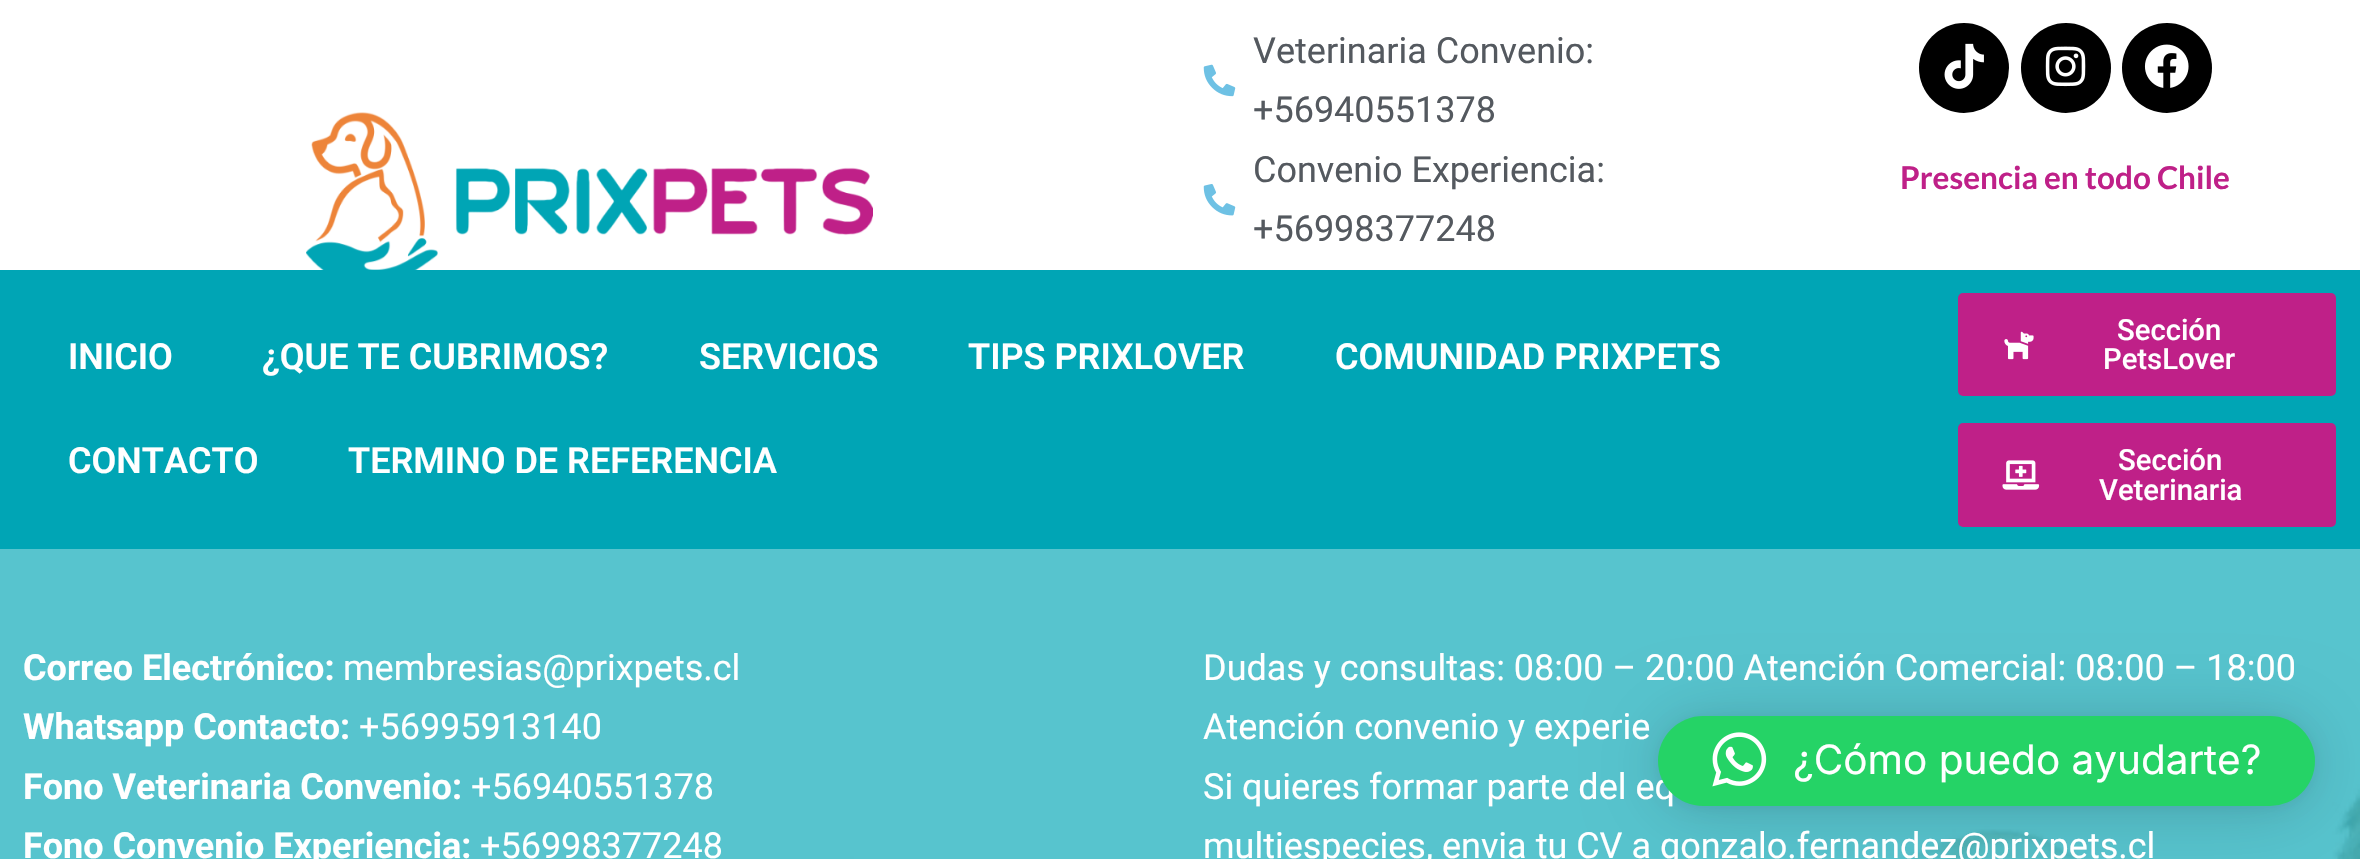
#include "include/core/SkBlurTypes.h"
#include "include/core/SkCanvas.h"
#include "include/core/SkData.h"
#include "include/core/SkFont.h"
#include "include/core/SkFontMgr.h"
#include "include/core/SkImage.h"
#include "include/core/SkMaskFilter.h"
#include "include/core/SkPaint.h"
#include "include/core/SkPathBuilder.h"
#include "include/core/SkTextBlob.h"
#include "include/effects/SkDashPathEffect.h"
#include "include/effects/SkGradientShader.h"
#include "include/utils/SkParsePath.h"

extern sk_sp<SkFontMgr> fontMgr;

void draw(SkCanvas* canvas) {
  SkPaint p;
  p.setAntiAlias(true);
  canvas->clear(SK_ColorWHITE);
  canvas->drawImageRect(SkImages::DeferredFromEncodedData(SkData::MakeFromFileName("images/1.png")), SkRect::MakeLTRB(306, 112, 873, 270), SkSamplingOptions());
  canvas->drawImageRect(SkImages::DeferredFromEncodedData(SkData::MakeFromFileName("images/2.png")), SkRect::MakeLTRB(1203, 64, 1236, 97), SkSamplingOptions());
  canvas->drawImageRect(SkImages::DeferredFromEncodedData(SkData::MakeFromFileName("images/3.png")), SkRect::MakeLTRB(1203, 184, 1236, 216), SkSamplingOptions());
  p.setColor(SK_ColorBLACK);
  canvas->drawCircle(1964, 68, 45, p);
  canvas->drawImageRect(SkImages::DeferredFromEncodedData(SkData::MakeFromFileName("images/4.png")), SkRect::MakeLTRB(1944, 43, 1984, 89), SkSamplingOptions());
  canvas->drawCircle(2066, 68, 45, p);
  canvas->drawImageRect(SkImages::DeferredFromEncodedData(SkData::MakeFromFileName("images/5.png")), SkRect::MakeLTRB(2045, 46, 2086, 87), SkSamplingOptions());
  canvas->drawCircle(2167, 68, 45, p);
  canvas->drawImageRect(SkImages::DeferredFromEncodedData(SkData::MakeFromFileName("images/6.png")), SkRect::MakeLTRB(2144, 44, 2189, 88), SkSamplingOptions());
  p.setColor(SkColorSetRGB(0, 165, 181));
  canvas->drawRect(SkRect::MakeLTRB(0, 270, 2360, 549), p);
  p.setColor(SkColorSetRGB(191, 32, 136));
  canvas->drawRoundRect(SkRect::MakeLTRB(1958, 293, 2336, 396), 5, 5, p);
  canvas->drawImageRect(SkImages::DeferredFromEncodedData(SkData::MakeFromFileName("images/7.png")), SkRect::MakeLTRB(2004, 331, 2034, 360), SkSamplingOptions());
  canvas->drawRoundRect(SkRect::MakeLTRB(1958, 423, 2336, 527), 5, 5, p);
  canvas->drawImageRect(SkImages::DeferredFromEncodedData(SkData::MakeFromFileName("images/8.png")), SkRect::MakeLTRB(2002, 460, 2040, 490), SkSamplingOptions());
  canvas->drawImageRect(SkImages::DeferredFromEncodedData(SkData::MakeFromFileName("images/9.png")), SkRect::MakeLTRB(0, 549, 2360, 859), SkSamplingOptions());
  p.setColor(SkColorSetARGB(41, 0, 0, 0));
  p.setMaskFilter(SkMaskFilter::MakeBlur(kNormal_SkBlurStyle, 36));
  canvas->drawRoundRect(SkRect::MakeLTRB(1658, 720, 2315, 810), 45, 45, p);
  p.setMaskFilter(nullptr);
  p.setColor(SkColorSetARGB(15, 0, 0, 0));
  p.setMaskFilter(SkMaskFilter::MakeBlur(kNormal_SkBlurStyle, 7));
  canvas->drawRoundRect(SkRect::MakeLTRB(1658, 718, 2315, 808), 45, 45, p);
  p.setMaskFilter(nullptr);
  SkFont font1(fontMgr->matchFamilyStyle("Roboto", SkFontStyle::Normal()), 36);
  font1.setSubpixel(true);
  p.setColor(SkColorSetRGB(84, 89, 95));
  canvas->drawString("Veterinaria Convenio:", 1253, 63, font1, p);
  canvas->drawString("+56940551378", 1253, 122, font1, p);
  canvas->drawString("Convenio Experiencia:", 1253, 182, font1, p);
  canvas->drawString("+56998377248", 1253, 241, font1, p);
  SkFont font2(fontMgr->matchFamilyStyle("Lato", SkFontStyle::Bold()), 31.5f);
  font2.setSubpixel(true);
  p.setColor(SkColorSetRGB(191, 32, 136));
  canvas->drawString("Presencia en todo Chile", 1900, 189, font2, p);
  SkFont font3(fontMgr->matchFamilyStyle("Roboto", SkFontStyle(600, SkFontStyle::kNormal_Width, SkFontStyle::kUpright_Slant)), 36);
  font3.setSubpixel(true);
  p.setColor(SK_ColorWHITE);
  canvas->drawString("INICIO", 68, 369, font3, p);
  canvas->drawString("¿QUE TE CUBRIMOS?", 262, 369, font3, p);
  canvas->drawString("SERVICIOS", 699, 369, font3, p);
  canvas->drawString("TIPS PRIXLOVER", 968, 369, font3, p);
  canvas->drawString("COMUNIDAD PRIXPETS", 1335, 369, font3, p);
  canvas->drawString("CONTACTO", 68, 473, font3, p);
  canvas->drawString("TERMINO DE REFERENCIA", 348, 473, font3, p);
  SkFont font4(fontMgr->matchFamilyStyle("Roboto", SkFontStyle(500, SkFontStyle::kNormal_Width, SkFontStyle::kUpright_Slant)), 29.25f);
  font4.setSubpixel(true);
  canvas->drawString("Sección", 2117, 340, font4, p);
  canvas->drawString("PetsLover", 2103, 369, font4, p);
  canvas->drawString("Sección", 2118, 470, font4, p);
  canvas->drawString("Veterinaria", 2099, 500, font4, p);
  SkFont font5(fontMgr->matchFamilyStyle("Roboto", SkFontStyle::Bold()), 36);
  font5.setSubpixel(true);
  canvas->drawString("Correo Electrónico:", 23, 680, font5, p);
  canvas->drawString("membresias@prixpets.cl", 343, 680, font1, p);
  canvas->drawString("Whatsapp Contacto:", 23, 739, font5, p);
  canvas->drawString("+56995913140", 359, 739, font1, p);
  canvas->drawString("Fono Veterinaria Convenio:", 23, 799, font5, p);
  canvas->drawString("+56940551378", 471, 799, font1, p);
  canvas->drawString("Fono Convenio Experiencia:", 23, 858, font5, p);
  canvas->drawString("+56998377248", 480, 858, font1, p);
  canvas->drawString("Dudas y consultas: 08:00 – 20:00 Atención Comercial: 08:00 – 18:00", 1203, 680, font1, p);
  canvas->drawString("Atención convenio y experie", 1203, 739, font1, p);
  canvas->drawString("Si quieres formar parte del eq", 1203, 799, font1, p);
  canvas->drawString("multiespecies, envia tu CV a gonzalo.fernandez@prixpets.cl", 1203, 858, font1, p);
  p.setColor(SkColorSetRGB(37, 211, 102));
  canvas->drawRoundRect(SkRect::MakeLTRB(1658, 716, 2315, 806), 45, 45, p);
  canvas->drawImageRect(SkImages::DeferredFromEncodedData(SkData::MakeFromFileName("images/10.png")), SkRect::MakeLTRB(1712, 732, 1767, 787), SkSamplingOptions());
  SkFont font6(fontMgr->matchFamilyStyle("Inter", SkFontStyle::Normal()), 40.5f);
  font6.setSubpixel(true);
  p.setColor(SK_ColorWHITE);
  canvas->drawString("¿Cómo puedo ayudarte?", 1793, 774, font6, p);
}
